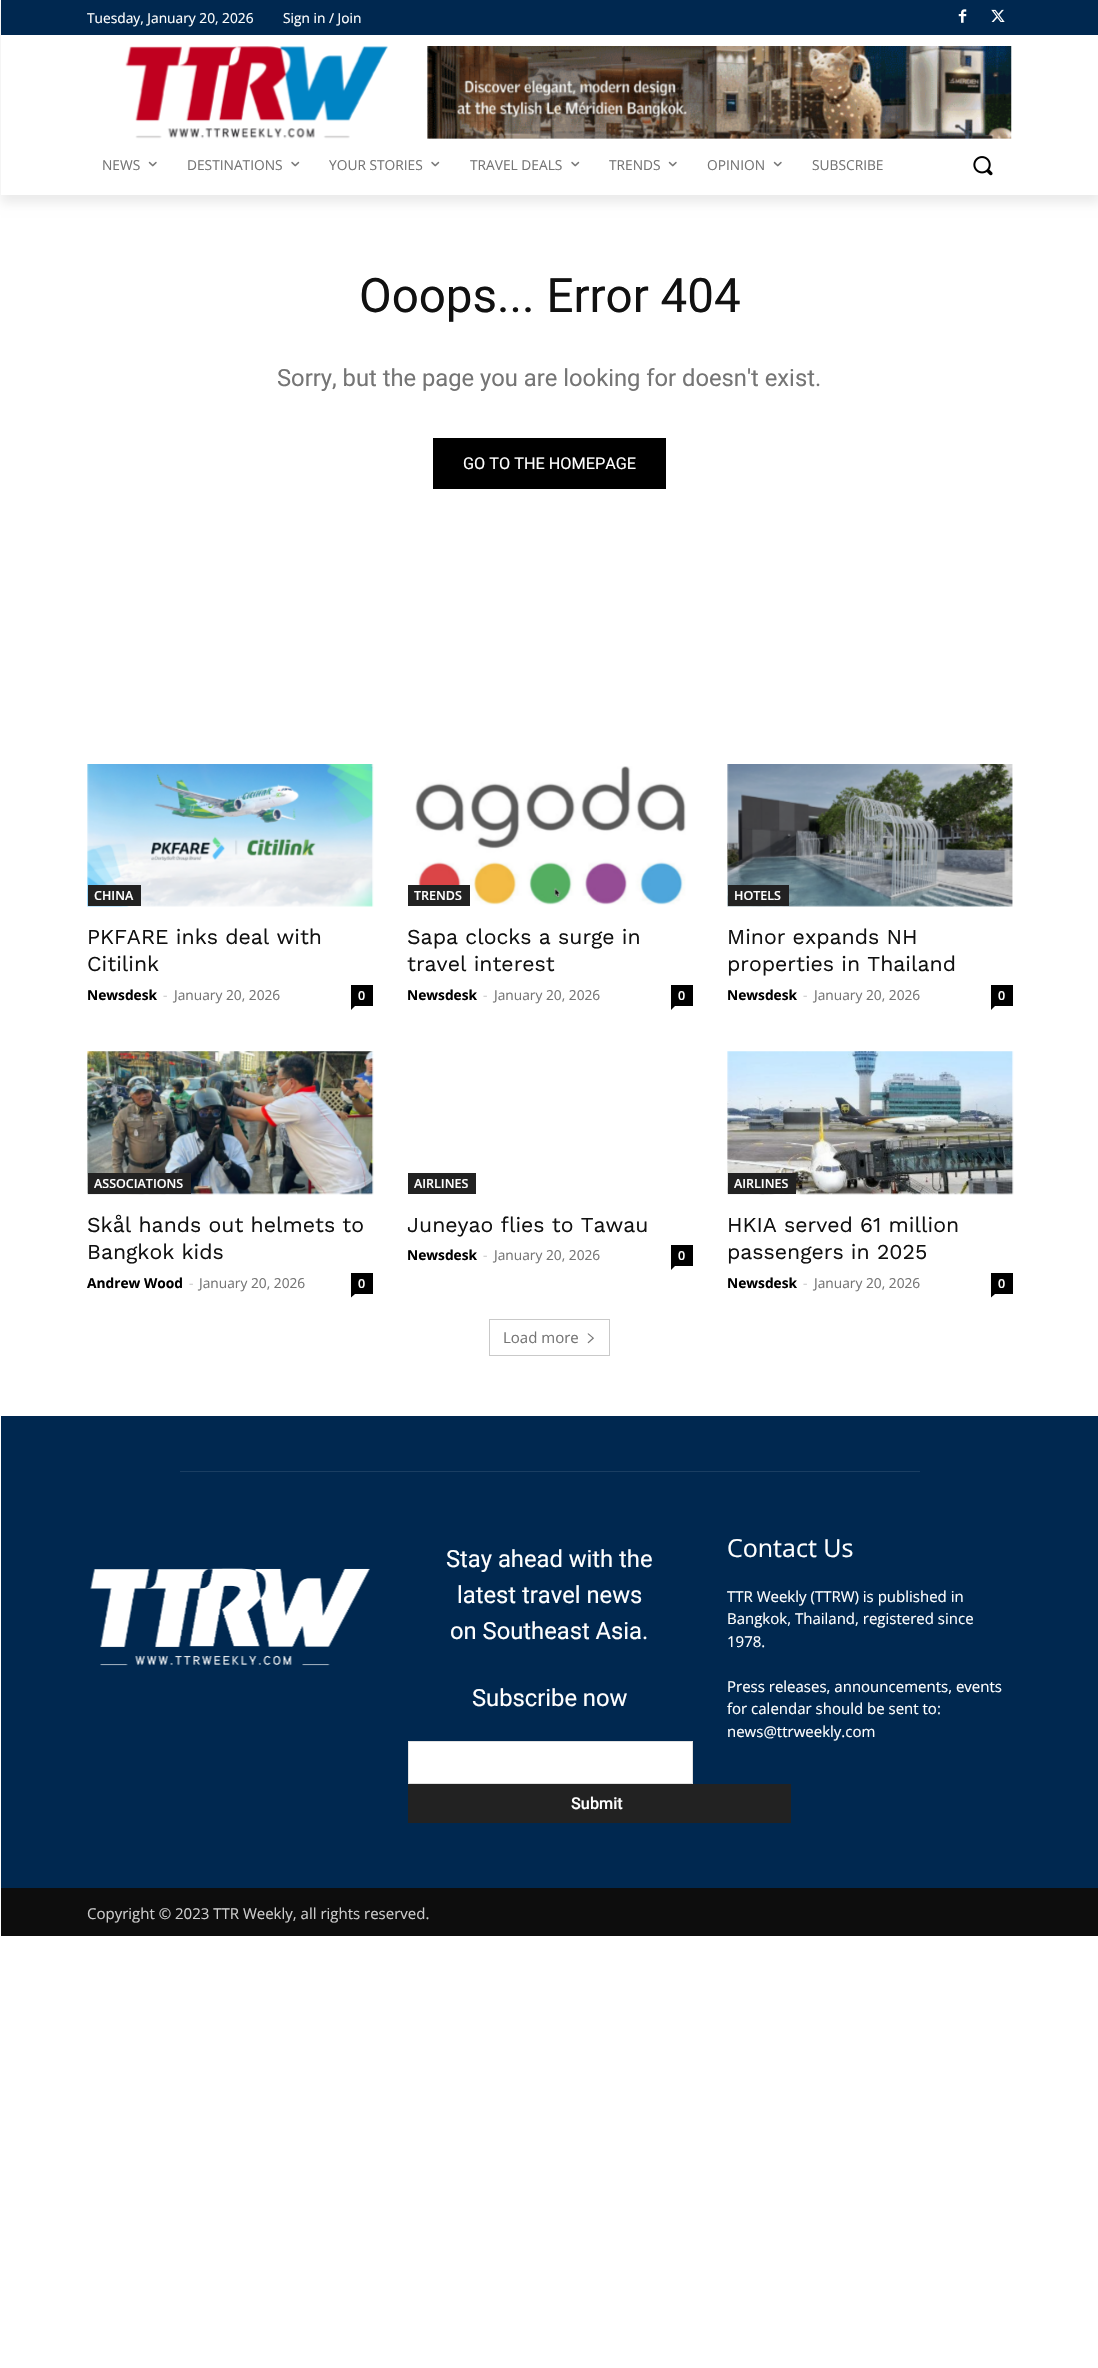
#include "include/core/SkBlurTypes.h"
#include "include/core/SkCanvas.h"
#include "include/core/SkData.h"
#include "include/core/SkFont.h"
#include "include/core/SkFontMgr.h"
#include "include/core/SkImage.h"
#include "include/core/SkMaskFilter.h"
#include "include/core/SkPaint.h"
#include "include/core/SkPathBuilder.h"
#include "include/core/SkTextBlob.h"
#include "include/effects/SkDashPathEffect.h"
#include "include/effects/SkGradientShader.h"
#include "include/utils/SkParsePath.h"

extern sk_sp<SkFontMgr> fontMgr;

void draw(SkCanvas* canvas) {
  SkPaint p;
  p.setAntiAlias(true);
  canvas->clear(SK_ColorWHITE);
  p.setColor(SkColorSetRGB(0, 40, 80));
  canvas->drawRect(SkRect::MakeLTRB(1, 0, 1098, 35), p);
  canvas->drawImageRect(SkImages::DeferredFromEncodedData(SkData::MakeFromFileName("images/1.png")), SkRect::MakeLTRB(958, 9, 967, 23), SkSamplingOptions());
  canvas->drawImageRect(SkImages::DeferredFromEncodedData(SkData::MakeFromFileName("images/2.png")), SkRect::MakeLTRB(991, 9, 1005, 22), SkSamplingOptions());
  canvas->drawImageRect(SkImages::DeferredFromEncodedData(SkData::MakeFromFileName("images/3.png")), SkRect::MakeLTRB(125, 46, 388, 139), SkSamplingOptions());
  canvas->drawImageRect(SkImages::DeferredFromEncodedData(SkData::MakeFromFileName("images/4.png")), SkRect::MakeLTRB(427, 46, 1012, 139), SkSamplingOptions());
  canvas->save();
  canvas->clipPath(SkPathBuilder(SkPathFillType::kEvenOdd).moveTo(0, 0).lineTo(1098, 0).lineTo(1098, 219).lineTo(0, 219).close().moveTo(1, 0).lineTo(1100, 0).lineTo(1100, 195).lineTo(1, 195).close().detach(), true);
  p.setColor(SkColorSetARGB(20, 0, 0, 0));
  p.setMaskFilter(SkMaskFilter::MakeBlur(kNormal_SkBlurStyle, 5));
  canvas->drawRect(SkRect::MakeLTRB(1, 8, 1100, 203), p);
  p.setMaskFilter(nullptr);
  canvas->restore();
  canvas->drawImageRect(SkImages::DeferredFromEncodedData(SkData::MakeFromFileName("images/5.png")), SkRect::MakeLTRB(148, 161, 157, 167), SkSamplingOptions());
  canvas->drawImageRect(SkImages::DeferredFromEncodedData(SkData::MakeFromFileName("images/6.png")), SkRect::MakeLTRB(291, 161, 300, 167), SkSamplingOptions());
  canvas->drawImageRect(SkImages::DeferredFromEncodedData(SkData::MakeFromFileName("images/6.png")), SkRect::MakeLTRB(431, 161, 440, 167), SkSamplingOptions());
  canvas->drawImageRect(SkImages::DeferredFromEncodedData(SkData::MakeFromFileName("images/6.png")), SkRect::MakeLTRB(571, 161, 580, 167), SkSamplingOptions());
  canvas->drawImageRect(SkImages::DeferredFromEncodedData(SkData::MakeFromFileName("images/5.png")), SkRect::MakeLTRB(668, 161, 677, 167), SkSamplingOptions());
  canvas->drawImageRect(SkImages::DeferredFromEncodedData(SkData::MakeFromFileName("images/5.png")), SkRect::MakeLTRB(773, 161, 782, 167), SkSamplingOptions());
  canvas->drawImageRect(SkImages::DeferredFromEncodedData(SkData::MakeFromFileName("images/7.png")), SkRect::MakeLTRB(973, 156, 993, 176), SkSamplingOptions());
  p.setColor(SK_ColorBLACK);
  canvas->drawRect(SkRect::MakeLTRB(433, 438, 666, 489), p);
  canvas->drawImageRect(SkImages::DeferredFromEncodedData(SkData::MakeFromFileName("images/8.png")), SkRect::MakeLTRB(87, 764, 374, 907), SkSamplingOptions());
  p.setColor(SkColorSetRGB(34, 34, 34));
  canvas->drawRect(SkRect::MakeLTRB(88, 885, 141, 906), p);
  p.setColor(SK_ColorBLACK);
  canvas->drawRect(SkRect::MakeLTRB(351, 985, 373, 1006), p);
  canvas->drawPath(SkPathBuilder().moveTo(351, 1006).lineTo(355, 1006).lineTo(351, 1010).close().detach(), p);
  canvas->drawImageRect(SkImages::DeferredFromEncodedData(SkData::MakeFromFileName("images/9.png")), SkRect::MakeLTRB(415, 766, 686, 905), SkSamplingOptions());
  p.setColor(SkColorSetRGB(34, 34, 34));
  canvas->drawRect(SkRect::MakeLTRB(408, 885, 470, 906), p);
  p.setColor(SK_ColorBLACK);
  canvas->drawRect(SkRect::MakeLTRB(671, 985, 693, 1006), p);
  canvas->drawPath(SkPathBuilder().moveTo(671, 1006).lineTo(675, 1006).lineTo(671, 1010).close().detach(), p);
  canvas->drawImageRect(SkImages::DeferredFromEncodedData(SkData::MakeFromFileName("images/10.png")), SkRect::MakeLTRB(727, 764, 1013, 907), SkSamplingOptions());
  p.setColor(SkColorSetRGB(34, 34, 34));
  canvas->drawRect(SkRect::MakeLTRB(728, 885, 789, 906), p);
  p.setColor(SK_ColorBLACK);
  canvas->drawRect(SkRect::MakeLTRB(991, 985, 1013, 1006), p);
  canvas->drawPath(SkPathBuilder().moveTo(991, 1006).lineTo(995, 1006).lineTo(991, 1010).close().detach(), p);
  canvas->drawImageRect(SkImages::DeferredFromEncodedData(SkData::MakeFromFileName("images/11.png")), SkRect::MakeLTRB(87, 1051, 374, 1195), SkSamplingOptions());
  p.setColor(SkColorSetRGB(34, 34, 34));
  canvas->drawRect(SkRect::MakeLTRB(88, 1173, 191, 1194), p);
  p.setColor(SK_ColorBLACK);
  canvas->drawRect(SkRect::MakeLTRB(351, 1273, 373, 1294), p);
  canvas->drawPath(SkPathBuilder().moveTo(351, 1294).lineTo(355, 1294).lineTo(351, 1297.5f).close().detach(), p);
  p.setColor(SkColorSetRGB(34, 34, 34));
  canvas->drawRect(SkRect::MakeLTRB(408, 1173, 476, 1194), p);
  p.setColor(SK_ColorBLACK);
  canvas->drawRect(SkRect::MakeLTRB(671, 1245, 693, 1266), p);
  canvas->drawPath(SkPathBuilder().moveTo(671, 1266).lineTo(675, 1266).lineTo(671, 1270).close().detach(), p);
  canvas->drawImageRect(SkImages::DeferredFromEncodedData(SkData::MakeFromFileName("images/12.png")), SkRect::MakeLTRB(727, 1051, 1014, 1195), SkSamplingOptions());
  p.setColor(SkColorSetRGB(34, 34, 34));
  canvas->drawRect(SkRect::MakeLTRB(728, 1173, 796, 1194), p);
  p.setColor(SK_ColorBLACK);
  canvas->drawRect(SkRect::MakeLTRB(991, 1273, 1013, 1294), p);
  canvas->drawPath(SkPathBuilder().moveTo(991, 1294).lineTo(995, 1294).lineTo(991, 1297.5f).close().detach(), p);
  p.setStyle(SkPaint::kStroke_Style);
  p.setStrokeWidth(1);
  p.setColor(SkColorSetRGB(201, 201, 201));
  canvas->drawRect(SkRect::MakeLTRB(489.5f, 1319.5f, 609.5f, 1355.5f), p);
  canvas->drawImageRect(SkImages::DeferredFromEncodedData(SkData::MakeFromFileName("images/13.png")), SkRect::MakeLTRB(587, 1333, 594, 1344), SkSamplingOptions());
  p.setStyle(SkPaint::kFill_Style);
  p.setColor(SkColorSetRGB(0, 40, 80));
  canvas->drawRect(SkRect::MakeLTRB(1, 1416, 1098, 1888), p);
  p.setColor(SkColorSetRGB(26, 62, 98));
  canvas->drawRect(SkRect::MakeLTRB(180, 1471, 920, 1472), p);
  canvas->drawImageRect(SkImages::DeferredFromEncodedData(SkData::MakeFromFileName("images/14.png")), SkRect::MakeLTRB(90, 1568, 370, 1666), SkSamplingOptions());
  p.setColor(SK_ColorWHITE);
  canvas->drawRect(SkRect::MakeLTRB(408.5f, 1741.5f, 692.5f, 1783.5f), p);
  p.setStyle(SkPaint::kStroke_Style);
  p.setColor(SkColorSetRGB(225, 225, 225));
  canvas->drawRect(SkRect::MakeLTRB(408.5f, 1741.5f, 692.5f, 1783.5f), p);
  p.setStyle(SkPaint::kFill_Style);
  p.setColor(SkColorSetRGB(34, 34, 34));
  canvas->drawRect(SkRect::MakeLTRB(408, 1784, 791, 1823), p);
  p.setColor(SkColorSetRGB(13, 13, 13));
  canvas->drawRect(SkRect::MakeLTRB(1, 1888, 1098, 1936), p);
  SkFont font1(fontMgr->matchFamilyStyle("Open Sans", SkFontStyle::Normal()), 13.75f);
  font1.setSubpixel(true);
  p.setColor(SK_ColorWHITE);
  canvas->drawString("Tuesday, January 20, 2026", 87, 23, font1, p);
  canvas->drawString("Sign in / Join", 283, 23, font1, p);
  p.setColor(SkColorSetRGB(117, 117, 117));
  canvas->drawString("NEWS", 102, 170, font1, p);
  canvas->drawString("DESTINATIONS", 187, 170, font1, p);
  canvas->drawString("YOUR STORIES", 329, 170, font1, p);
  canvas->drawString("TRAVEL DEALS", 470, 170, font1, p);
  canvas->drawString("TRENDS", 609, 170, font1, p);
  canvas->drawString("OPINION", 707, 170, font1, p);
  canvas->drawString("SUBSCRIBE", 812, 170, font1, p);
  SkFont font2(fontMgr->matchFamilyStyle("Roboto", SkFontStyle::Normal()), 47.5f);
  font2.setSubpixel(true);
  p.setColor(SkColorSetRGB(17, 17, 17));
  canvas->drawString("Ooops... Error 404", 359, 312, font2, p);
  SkFont font3(fontMgr->matchFamilyStyle("Roboto", SkFontStyle::Normal()), 23.75f);
  font3.setSubpixel(true);
  p.setColor(SkColorSetRGB(117, 117, 117));
  canvas->drawString("Sorry, but the page you are looking for doesn't exist.", 277, 386, font3, p);
  SkFont font4(fontMgr->matchFamilyStyle("Roboto", SkFontStyle::Normal()), 16.25f);
  font4.setSubpixel(true);
  p.setColor(SK_ColorWHITE);
  canvas->drawString("GO TO THE HOMEPAGE", 463, 469, font4, p);
  SkFont font5(fontMgr->matchFamilyStyle("Open Sans", SkFontStyle(600, SkFontStyle::kNormal_Width, SkFontStyle::kUpright_Slant)), 12.5f);
  font5.setSubpixel(true);
  canvas->drawString("CHINA", 94, 900, font5, p);
  SkFont font6(fontMgr->matchFamilyStyle("Work Sans", SkFontStyle::Normal()), 21.25f);
  font6.setSubpixel(true);
  p.setColor(SkColorSetRGB(17, 17, 17));
  canvas->drawString("PKFARE inks deal with", 87, 944, font6, p);
  canvas->drawString("Citilink", 87, 971, font6, p);
  SkFont font7(fontMgr->matchFamilyStyle("Open Sans", SkFontStyle::Bold()), 13.75f);
  font7.setSubpixel(true);
  p.setColor(SK_ColorBLACK);
  canvas->drawString("Newsdesk", 87, 1000, font7, p);
  p.setColor(SkColorSetRGB(204, 204, 204));
  canvas->drawString("-", 163, 1000, font1, p);
  p.setColor(SkColorSetRGB(117, 117, 117));
  canvas->drawString("January 20, 2026", 174, 1000, font1, p);
  p.setColor(SK_ColorWHITE);
  canvas->drawString("0", 358, 1000, font5, p);
  canvas->drawString("TRENDS", 414, 900, font5, p);
  p.setColor(SkColorSetRGB(17, 17, 17));
  canvas->drawString("Sapa clocks a surge in", 407, 944, font6, p);
  canvas->drawString("travel interest", 407, 971, font6, p);
  p.setColor(SK_ColorBLACK);
  canvas->drawString("Newsdesk", 407, 1000, font7, p);
  p.setColor(SkColorSetRGB(204, 204, 204));
  canvas->drawString("-", 483, 1000, font1, p);
  p.setColor(SkColorSetRGB(117, 117, 117));
  canvas->drawString("January 20, 2026", 494, 1000, font1, p);
  p.setColor(SK_ColorWHITE);
  canvas->drawString("0", 678, 1000, font5, p);
  canvas->drawString("HOTELS", 734, 900, font5, p);
  p.setColor(SkColorSetRGB(17, 17, 17));
  canvas->drawString("Minor expands NH", 727, 944, font6, p);
  canvas->drawString("properties in Thailand", 727, 971, font6, p);
  p.setColor(SK_ColorBLACK);
  canvas->drawString("Newsdesk", 727, 1000, font7, p);
  p.setColor(SkColorSetRGB(204, 204, 204));
  canvas->drawString("-", 803, 1000, font1, p);
  p.setColor(SkColorSetRGB(117, 117, 117));
  canvas->drawString("January 20, 2026", 814, 1000, font1, p);
  p.setColor(SK_ColorWHITE);
  canvas->drawString("0", 998, 1000, font5, p);
  canvas->drawString("ASSOCIATIONS", 94, 1188, font5, p);
  p.setColor(SkColorSetRGB(17, 17, 17));
  canvas->drawString("Skål hands out helmets to", 87, 1232, font6, p);
  canvas->drawString("Bangkok kids", 87, 1259, font6, p);
  p.setColor(SK_ColorBLACK);
  canvas->drawString("Andrew Wood", 87, 1288, font7, p);
  p.setColor(SkColorSetRGB(204, 204, 204));
  canvas->drawString("-", 189, 1288, font1, p);
  p.setColor(SkColorSetRGB(117, 117, 117));
  canvas->drawString("January 20, 2026", 199, 1288, font1, p);
  p.setColor(SK_ColorWHITE);
  canvas->drawString("0", 358, 1288, font5, p);
  canvas->drawString("AIRLINES", 414, 1188, font5, p);
  p.setColor(SkColorSetRGB(17, 17, 17));
  canvas->drawString("Juneyao flies to Tawau", 407, 1232, font6, p);
  p.setColor(SK_ColorBLACK);
  canvas->drawString("Newsdesk", 407, 1260, font7, p);
  p.setColor(SkColorSetRGB(204, 204, 204));
  canvas->drawString("-", 483, 1260, font1, p);
  p.setColor(SkColorSetRGB(117, 117, 117));
  canvas->drawString("January 20, 2026", 494, 1260, font1, p);
  p.setColor(SK_ColorWHITE);
  canvas->drawString("0", 678, 1260, font5, p);
  canvas->drawString("AIRLINES", 734, 1188, font5, p);
  p.setColor(SkColorSetRGB(17, 17, 17));
  canvas->drawString("HKIA served 61 million", 727, 1232, font6, p);
  canvas->drawString("passengers in 2025", 727, 1259, font6, p);
  p.setColor(SK_ColorBLACK);
  canvas->drawString("Newsdesk", 727, 1288, font7, p);
  p.setColor(SkColorSetRGB(204, 204, 204));
  canvas->drawString("-", 803, 1288, font1, p);
  p.setColor(SkColorSetRGB(117, 117, 117));
  canvas->drawString("January 20, 2026", 814, 1288, font1, p);
  p.setColor(SK_ColorWHITE);
  canvas->drawString("0", 998, 1288, font5, p);
  SkFont font8(fontMgr->matchFamilyStyle("Open Sans", SkFontStyle::Normal()), 15);
  font8.setSubpixel(true);
  p.setColor(SkColorSetRGB(117, 117, 117));
  canvas->drawString("Load more", 503, 1343, font8, p);
  p.setColor(SK_ColorWHITE);
  canvas->drawString("Stay ahead with the", 446, 1567, font3, p);
  canvas->drawString("latest travel news", 457, 1603, font3, p);
  canvas->drawString("on Southeast Asia.", 450, 1639, font3, p);
  canvas->drawString("Subscribe now", 472, 1706, font3, p);
  SkFont font9(fontMgr->matchFamilyStyle("Roboto", SkFontStyle(500, SkFontStyle::kNormal_Width, SkFontStyle::kUpright_Slant)), 16.25f);
  font9.setSubpixel(true);
  canvas->drawString("Submit", 571, 1809, font9, p);
  SkFont font10(fontMgr->matchFamilyStyle("Open Sans", SkFontStyle::Normal()), 25);
  font10.setSubpixel(true);
  canvas->drawString("Contact Us", 727, 1557, font10, p);
  canvas->drawString("TTR Weekly (TTRW) is published in", 727, 1602, font8, p);
  canvas->drawString("Bangkok, Thailand, registered since", 727, 1624, font8, p);
  canvas->drawString("1978.", 727, 1647, font8, p);
  canvas->drawString("Press releases, announcements, events", 727, 1692, font8, p);
  canvas->drawString("for calendar should be sent to:", 727, 1714, font8, p);
  canvas->drawString("news@ttrweekly.com", 727, 1737, font8, p);
  p.setColor(SkColorSetRGB(204, 204, 204));
  canvas->drawString("Copyright © 2023 TTR Weekly, all rights reserved.", 87, 1919, font8, p);
}
